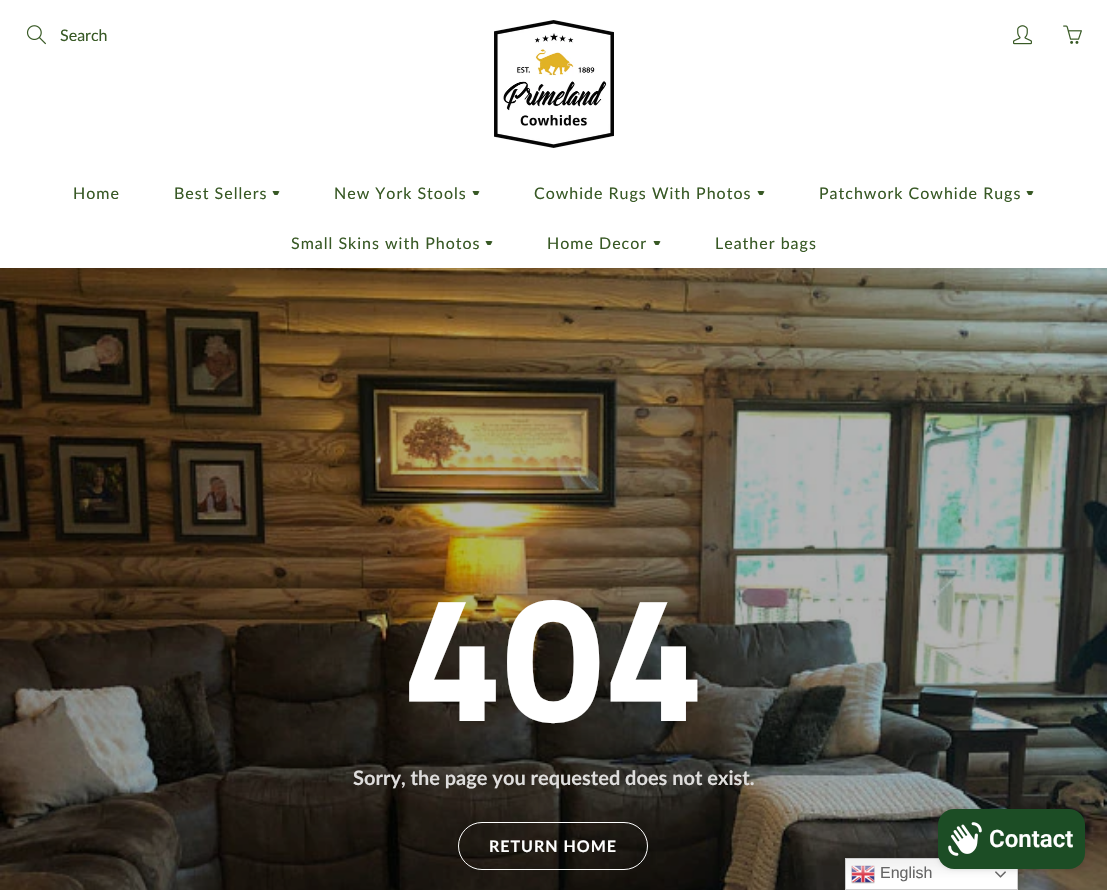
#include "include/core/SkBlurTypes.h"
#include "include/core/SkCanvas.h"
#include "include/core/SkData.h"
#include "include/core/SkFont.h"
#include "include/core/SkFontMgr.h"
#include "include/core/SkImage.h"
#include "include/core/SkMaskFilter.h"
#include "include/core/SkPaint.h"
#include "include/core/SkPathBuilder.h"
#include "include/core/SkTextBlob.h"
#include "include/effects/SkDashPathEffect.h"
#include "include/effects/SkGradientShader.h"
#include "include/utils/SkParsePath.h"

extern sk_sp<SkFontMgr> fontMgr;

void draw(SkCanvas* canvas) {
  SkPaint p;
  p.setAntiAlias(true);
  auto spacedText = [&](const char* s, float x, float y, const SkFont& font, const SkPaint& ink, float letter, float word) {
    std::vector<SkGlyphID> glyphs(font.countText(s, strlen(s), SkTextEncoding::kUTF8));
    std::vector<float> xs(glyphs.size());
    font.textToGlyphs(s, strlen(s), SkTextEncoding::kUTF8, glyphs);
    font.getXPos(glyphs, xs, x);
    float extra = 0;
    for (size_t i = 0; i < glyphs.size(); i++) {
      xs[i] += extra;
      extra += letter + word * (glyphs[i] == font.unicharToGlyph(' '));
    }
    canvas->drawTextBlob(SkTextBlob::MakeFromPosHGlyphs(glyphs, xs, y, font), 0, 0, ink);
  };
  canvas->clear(SK_ColorWHITE);
  canvas->drawImageRect(SkImages::DeferredFromEncodedData(SkData::MakeFromFileName("images/1.png")), SkRect::MakeLTRB(26, 25, 46, 45), SkSamplingOptions());
  canvas->drawImageRect(SkImages::DeferredFromEncodedData(SkData::MakeFromFileName("images/2.png")), SkRect::MakeLTRB(494, 20, 614, 148), SkSamplingOptions());
  canvas->drawImageRect(SkImages::DeferredFromEncodedData(SkData::MakeFromFileName("images/3.png")), SkRect::MakeLTRB(1013, 25, 1032, 45), SkSamplingOptions());
  canvas->drawImageRect(SkImages::DeferredFromEncodedData(SkData::MakeFromFileName("images/4.png")), SkRect::MakeLTRB(1063, 25, 1082, 44), SkSamplingOptions());
  p.setColor(SkColorSetRGB(56, 89, 37));
  canvas->drawPath(SkPathBuilder().moveTo(273, 191).lineTo(272.5f, 191.5f).lineTo(274.5f, 195).lineTo(277.5f, 195).lineTo(279.5f, 191.5f).lineTo(278, 191).close().detach(), p);
  canvas->drawPath(SkPathBuilder().moveTo(473, 191).lineTo(472.5f, 191.5f).lineTo(474.5f, 195).lineTo(477.5f, 195).lineTo(479.5f, 191.5f).lineTo(478, 191).close().detach(), p);
  canvas->drawPath(SkPathBuilder().moveTo(758, 191).lineTo(757.5f, 191.5f).lineTo(759.5f, 195).lineTo(762.5f, 195).lineTo(764.5f, 191.5f).lineTo(763, 191).close().detach(), p);
  canvas->drawPath(SkPathBuilder().moveTo(1027, 191).lineTo(1026.5f, 191.5f).lineTo(1028.5f, 195).lineTo(1031.5f, 195).lineTo(1033.5f, 191.5f).lineTo(1032, 191).close().detach(), p);
  canvas->drawPath(SkPathBuilder().moveTo(486, 241).lineTo(485.5f, 241.5f).lineTo(487.5f, 245).lineTo(490.5f, 245).lineTo(492.5f, 241.5f).lineTo(491, 241).close().detach(), p);
  canvas->drawPath(SkPathBuilder().moveTo(654, 241).lineTo(653.5f, 241.5f).lineTo(655.5f, 245).lineTo(658.5f, 245).lineTo(660.5f, 241.5f).lineTo(659, 241).close().detach(), p);
  canvas->drawImageRect(SkImages::DeferredFromEncodedData(SkData::MakeFromFileName("images/5.png")), SkRect::MakeLTRB(0, 268, 1107, 890), SkSamplingOptions());
  p.setStyle(SkPaint::kStroke_Style);
  p.setStrokeWidth(1);
  p.setColor(SK_ColorWHITE);
  canvas->drawRoundRect(SkRect::MakeLTRB(458.5f, 822.5f, 647.5f, 869.5f), 23.5f, 23.5f, p);
  p.setStyle(SkPaint::kFill_Style);
  {
    const SkColor colors[] = {SkColorSetRGB(239, 239, 239), SK_ColorWHITE};
    const float stops[] = {0, 0.7f};
    const SkPoint ends[] = {{932, 858}, {932, 890}};
    p.setShader(SkGradientShader::MakeLinear(ends, colors, stops, 2, SkTileMode::kClamp));
    p.setAlpha(255);
  }
  canvas->drawRect(SkRect::MakeLTRB(846, 859, 1017, 889), p);
  p.setStyle(SkPaint::kStroke_Style);
  p.setShader(nullptr);
  p.setColor(SkColorSetRGB(204, 204, 204));
  canvas->drawRect(SkRect::MakeLTRB(845.5f, 858.5f, 1017.5f, 889.5f), p);
  canvas->drawImageRect(SkImages::DeferredFromEncodedData(SkData::MakeFromFileName("images/8.png")), SkRect::MakeLTRB(995, 871, 1006, 878), SkSamplingOptions());
  p.setStyle(SkPaint::kFill_Style);
  p.setColor(SkColorSetARGB(38, 0, 0, 0));
  p.setMaskFilter(SkMaskFilter::MakeBlur(kNormal_SkBlurStyle, 2.5f));
  canvas->drawRoundRect(SkRect::MakeLTRB(938, 809, 1085, 869), 16, 16, p);
  p.setMaskFilter(nullptr);
  p.setColor(SkColorSetRGB(28, 77, 37));
  canvas->drawRoundRect(SkRect::MakeLTRB(938, 809, 1085, 869), 16, 16, p);
  canvas->drawImageRect(SkImages::DeferredFromEncodedData(SkData::MakeFromFileName("images/6.png")), SkRect::MakeLTRB(948, 822, 982, 856), SkSamplingOptions());
  canvas->drawImageRect(SkImages::DeferredFromEncodedData(SkData::MakeFromFileName("images/7.png")), SkRect::MakeLTRB(851, 865, 875, 884), SkSamplingOptions());
  SkFont font1(fontMgr->matchFamilyStyle("Lato", SkFontStyle::Normal()), 16);
  font1.setSubpixel(true);
  p.setColor(SkColorSetRGB(56, 89, 37));
  canvas->drawString("Search", 60, 41, font1, p);
  spacedText("Home", 73, 199, font1, p, 1, 0);
  spacedText("Best Sellers", 174, 199, font1, p, 1, 0);
  spacedText("New York Stools", 334, 199, font1, p, 1, 0);
  spacedText("Cowhide Rugs With Photos", 534, 199, font1, p, 1, 0);
  spacedText("Patchwork Cowhide Rugs", 819, 199, font1, p, 1, 0);
  spacedText("Small Skins with Photos", 291, 249, font1, p, 1, 0);
  spacedText("Home Decor", 547, 249, font1, p, 1, 0);
  spacedText("Leather bags", 715, 249, font1, p, 1, 0);
  SkFont font2(fontMgr->matchFamilyStyle("Titillium Web", SkFontStyle::Bold()), 180);
  font2.setSubpixel(true);
  p.setColor(SK_ColorWHITE);
  canvas->drawString("404", 402, 721, font2, p);
  SkFont font3(fontMgr->matchFamilyStyle("Lato", SkFontStyle::Bold()), 20);
  font3.setSubpixel(true);
  p.setColor(SkColorSetRGB(222, 221, 220));
  canvas->drawString("Sorry, the page you requested does not exist.", 353, 785, font3, p);
  SkFont font4(fontMgr->matchFamilyStyle("Lato", SkFontStyle::Bold()), 16);
  font4.setSubpixel(true);
  p.setColor(SK_ColorWHITE);
  spacedText("RETURN HOME", 489, 852, font4, p, 1, 0);
  SkFont font5(fontMgr->matchFamilyStyle("Roboto", SkFontStyle(600, SkFontStyle::kNormal_Width, SkFontStyle::kUpright_Slant)), 24);
  font5.setSubpixel(true);
  canvas->drawString("Contact", 989, 847, font5, p);
  SkFont font6(fontMgr->matchFamilyStyle("Liberation Sans", SkFontStyle::Normal()), 16);
  font6.setSubpixel(true);
  p.setColor(SkColorSetRGB(102, 102, 102));
  canvas->drawString("English", 880, 878, font6, p);
}
